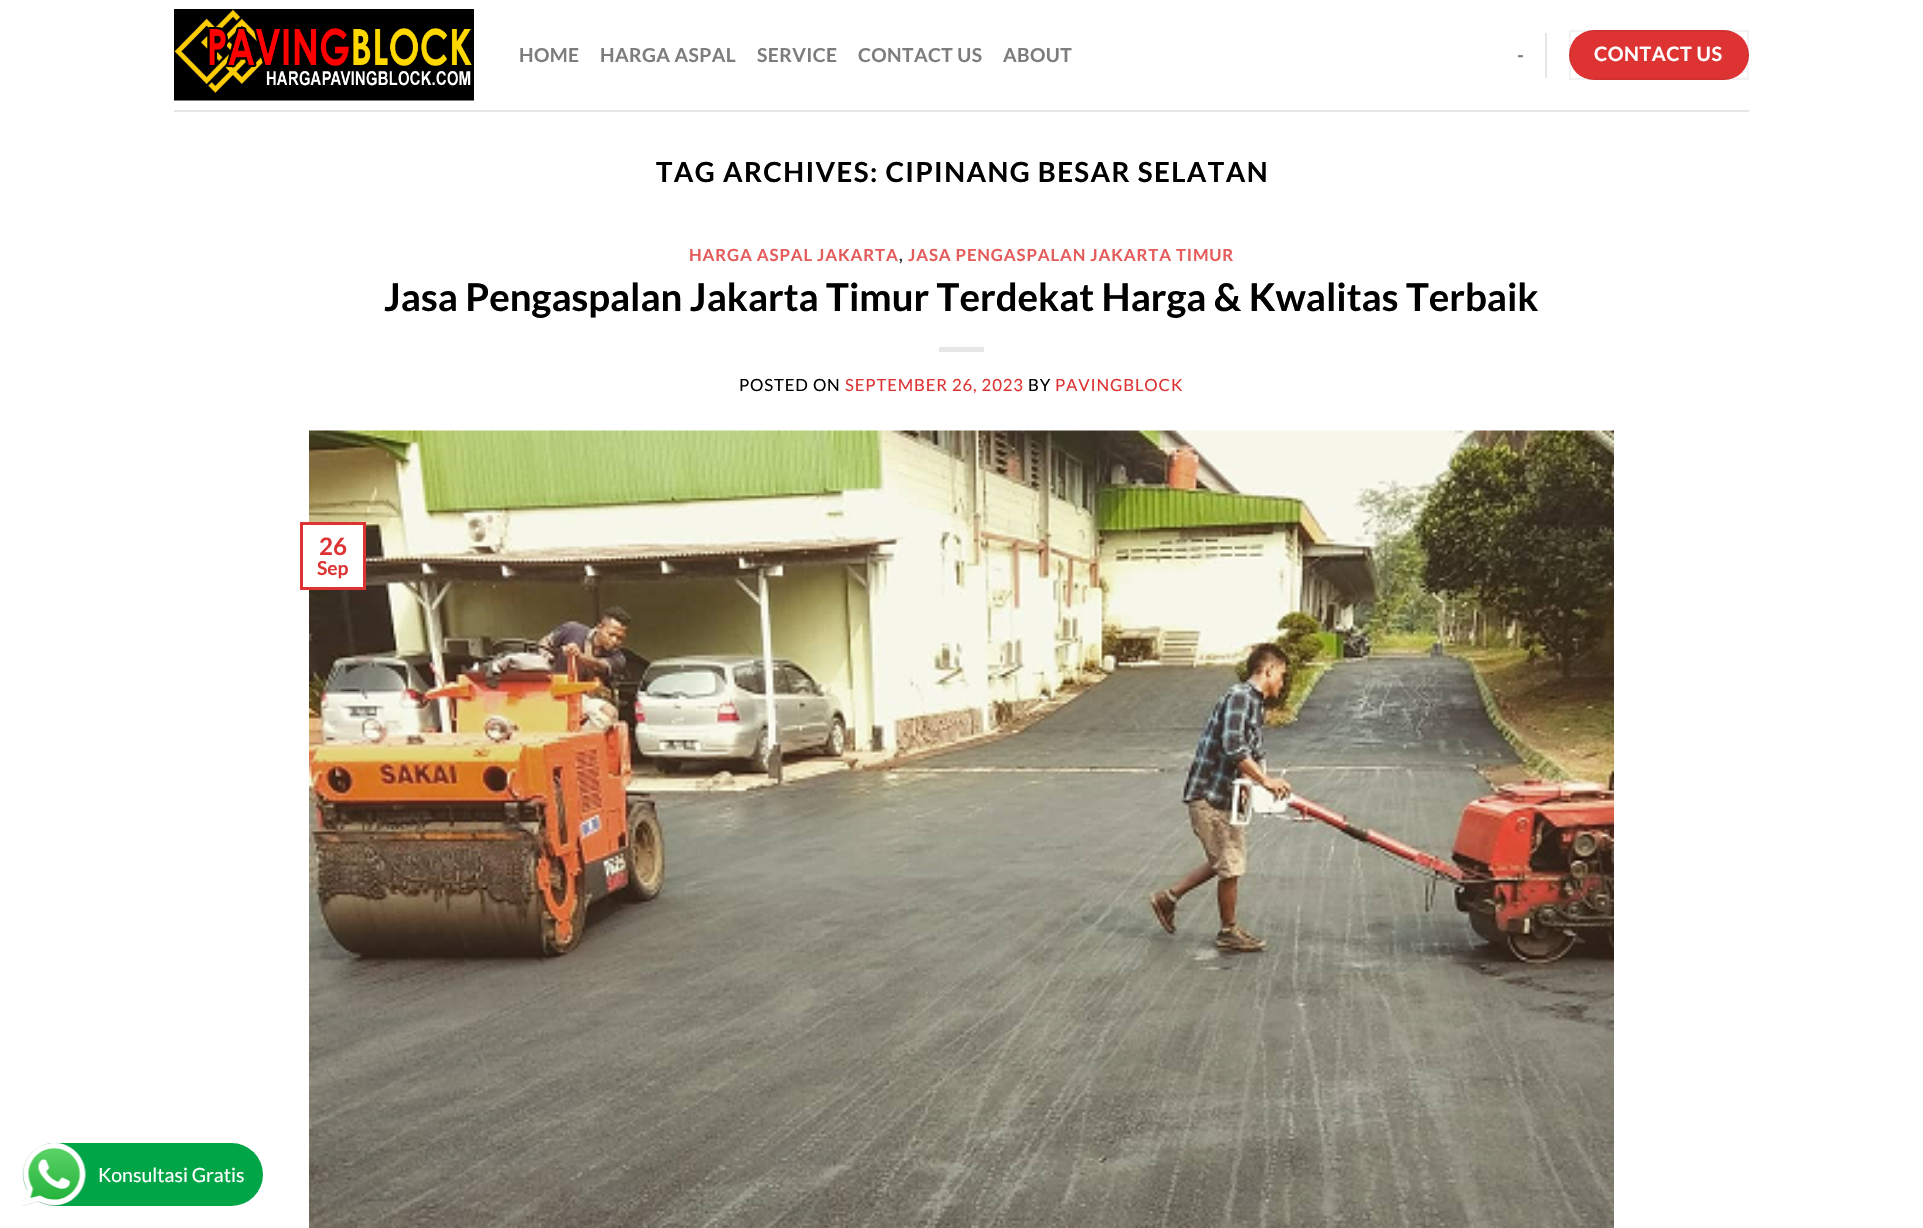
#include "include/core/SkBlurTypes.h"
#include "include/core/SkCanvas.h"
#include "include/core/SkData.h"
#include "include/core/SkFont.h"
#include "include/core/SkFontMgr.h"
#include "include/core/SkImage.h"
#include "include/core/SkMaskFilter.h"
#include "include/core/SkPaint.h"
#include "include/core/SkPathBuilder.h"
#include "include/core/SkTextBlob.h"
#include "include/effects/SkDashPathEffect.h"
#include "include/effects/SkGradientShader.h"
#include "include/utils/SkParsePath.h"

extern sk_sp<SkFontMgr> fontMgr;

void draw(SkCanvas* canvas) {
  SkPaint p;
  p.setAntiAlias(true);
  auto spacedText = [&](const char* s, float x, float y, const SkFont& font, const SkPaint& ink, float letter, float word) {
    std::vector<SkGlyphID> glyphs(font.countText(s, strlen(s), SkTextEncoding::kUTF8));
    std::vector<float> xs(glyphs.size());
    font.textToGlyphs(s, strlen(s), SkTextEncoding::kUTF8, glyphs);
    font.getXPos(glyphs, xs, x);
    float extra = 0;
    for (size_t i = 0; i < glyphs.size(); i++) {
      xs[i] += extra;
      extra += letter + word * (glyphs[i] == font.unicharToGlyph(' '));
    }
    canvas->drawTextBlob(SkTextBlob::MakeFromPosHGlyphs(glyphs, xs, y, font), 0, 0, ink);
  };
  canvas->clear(SK_ColorWHITE);
  canvas->drawImageRect(SkImages::DeferredFromEncodedData(SkData::MakeFromFileName("images/1.png")), SkRect::MakeLTRB(174, 9, 474, 101), SkSamplingOptions());
  p.setColor(SkColorSetRGB(230, 230, 230));
  canvas->drawRect(SkRect::MakeLTRB(1545, 33, 1547, 78), p);
  p.setColor(SkColorSetRGB(221, 51, 51));
  canvas->drawRoundRect(SkRect::MakeLTRB(1569, 30, 1749, 80), 25, 25, p);
  p.setStyle(SkPaint::kStroke_Style);
  p.setStrokeWidth(2);
  p.setColor(SkColorSetARGB(13, 0, 0, 0));
  canvas->drawRect(SkRect::MakeLTRB(1570, 31, 1748, 79), p);
  p.setStyle(SkPaint::kFill_Style);
  p.setColor(SkColorSetRGB(230, 230, 230));
  canvas->drawRect(SkRect::MakeLTRB(174, 110, 1749, 112), p);
  canvas->drawRect(SkRect::MakeLTRB(939, 347, 984, 352), p);
  canvas->drawImageRect(SkImages::DeferredFromEncodedData(SkData::MakeFromFileName("images/2.png")), SkRect::MakeLTRB(309, 430, 1614, 1228), SkSamplingOptions());
  p.setColor(SK_ColorWHITE);
  canvas->drawRect(SkRect::MakeLTRB(309, 525, 363, 587), p);
  p.setStyle(SkPaint::kStroke_Style);
  p.setStrokeWidth(3);
  p.setColor(SkColorSetRGB(221, 51, 51));
  canvas->drawRect(SkRect::MakeLTRB(301.5f, 523.5f, 364.5f, 588.5f), p);
  p.setStyle(SkPaint::kFill_Style);
  p.setColor(SkColorSetRGB(0, 165, 71));
  canvas->drawRoundRect(SkRect::MakeLTRB(23, 1143, 263, 1206), 31.5f, 31.5f, p);
  canvas->drawImageRect(SkImages::DeferredFromEncodedData(SkData::MakeFromFileName("images/3.png")), SkRect::MakeLTRB(22, 1143, 86, 1206), SkSamplingOptions());
  SkFont font1(fontMgr->matchFamilyStyle("Lato", SkFontStyle::Bold()), 19.25f);
  font1.setSubpixel(true);
  p.setColor(SkColorSetRGB(125, 125, 125));
  spacedText("HOME", 519, 62, font1, p, 0.4f, 0);
  spacedText("HARGA ASPAL", 600, 62, font1, p, 0.4f, 0);
  spacedText("SERVICE", 757, 62, font1, p, 0.4f, 0);
  spacedText("CONTACT US", 858, 62, font1, p, 0.4f, 0);
  spacedText("ABOUT", 1003, 62, font1, p, 0.4f, 0);
  spacedText("-", 1517, 62, font1, p, 0.4f, 0);
  SkFont font2(fontMgr->matchFamilyStyle("Lato", SkFontStyle::Bold()), 19.75f);
  font2.setSubpixel(true);
  p.setColor(SK_ColorWHITE);
  spacedText("CONTACT US", 1594, 61, font2, p, 0.5f, 0);
  SkFont font3(fontMgr->matchFamilyStyle("Lato", SkFontStyle::Bold()), 27.6f);
  font3.setSubpixel(true);
  p.setColor(SK_ColorBLACK);
  spacedText("TAG ARCHIVES: CIPINANG BESAR SELATAN", 656, 182, font3, p, 1.4f, 0);
  SkFont font4(fontMgr->matchFamilyStyle("Lato", SkFontStyle::Bold()), 16.75f);
  font4.setSubpixel(true);
  p.setColor(SkColorSetRGB(228, 92, 92));
  spacedText("HARGA ASPAL JAKARTA", 689, 261, font4, p, 0.85f, 0);
  p.setColor(SkColorSetRGB(51, 51, 51));
  spacedText(",", 899, 261, font4, p, 0.85f, 0);
  p.setColor(SkColorSetRGB(228, 92, 92));
  spacedText("JASA PENGASPALAN JAKARTA TIMUR", 908, 261, font4, p, 0.85f, 0);
  SkFont font5(fontMgr->matchFamilyStyle("Lato", SkFontStyle::Bold()), 38.4f);
  font5.setSubpixel(true);
  p.setColor(SK_ColorBLACK);
  canvas->drawString("Jasa Pengaspalan Jakarta Timur Terdekat Harga & Kwalitas Terbaik", 384, 311, font5, p);
  SkFont font6(fontMgr->matchFamilyStyle("Lato", SkFontStyle::Normal()), 16.75f);
  font6.setSubpixel(true);
  spacedText("POSTED ON", 739, 391, font6, p, 0.85f, 0);
  p.setColor(SkColorSetRGB(221, 51, 51));
  spacedText("SEPTEMBER 26, 2023", 845, 391, font6, p, 0.85f, 0);
  p.setColor(SK_ColorBLACK);
  spacedText("BY", 1028, 391, font6, p, 0.85f, 0);
  p.setColor(SkColorSetRGB(221, 51, 51));
  spacedText("PAVINGBLOCK", 1055, 391, font6, p, 0.85f, 0);
  SkFont font7(fontMgr->matchFamilyStyle("Lato", SkFontStyle::Bold()), 24);
  font7.setSubpixel(true);
  canvas->drawString("26", 319, 555, font7, p);
  canvas->drawString("Sep", 317, 575, font1, p);
  SkFont font8(fontMgr->matchFamilyStyle("Lato", SkFontStyle::Normal()), 19.5f);
  font8.setSubpixel(true);
  p.setColor(SK_ColorWHITE);
  canvas->drawString("Konsultasi Gratis", 98, 1182, font8, p);
}
